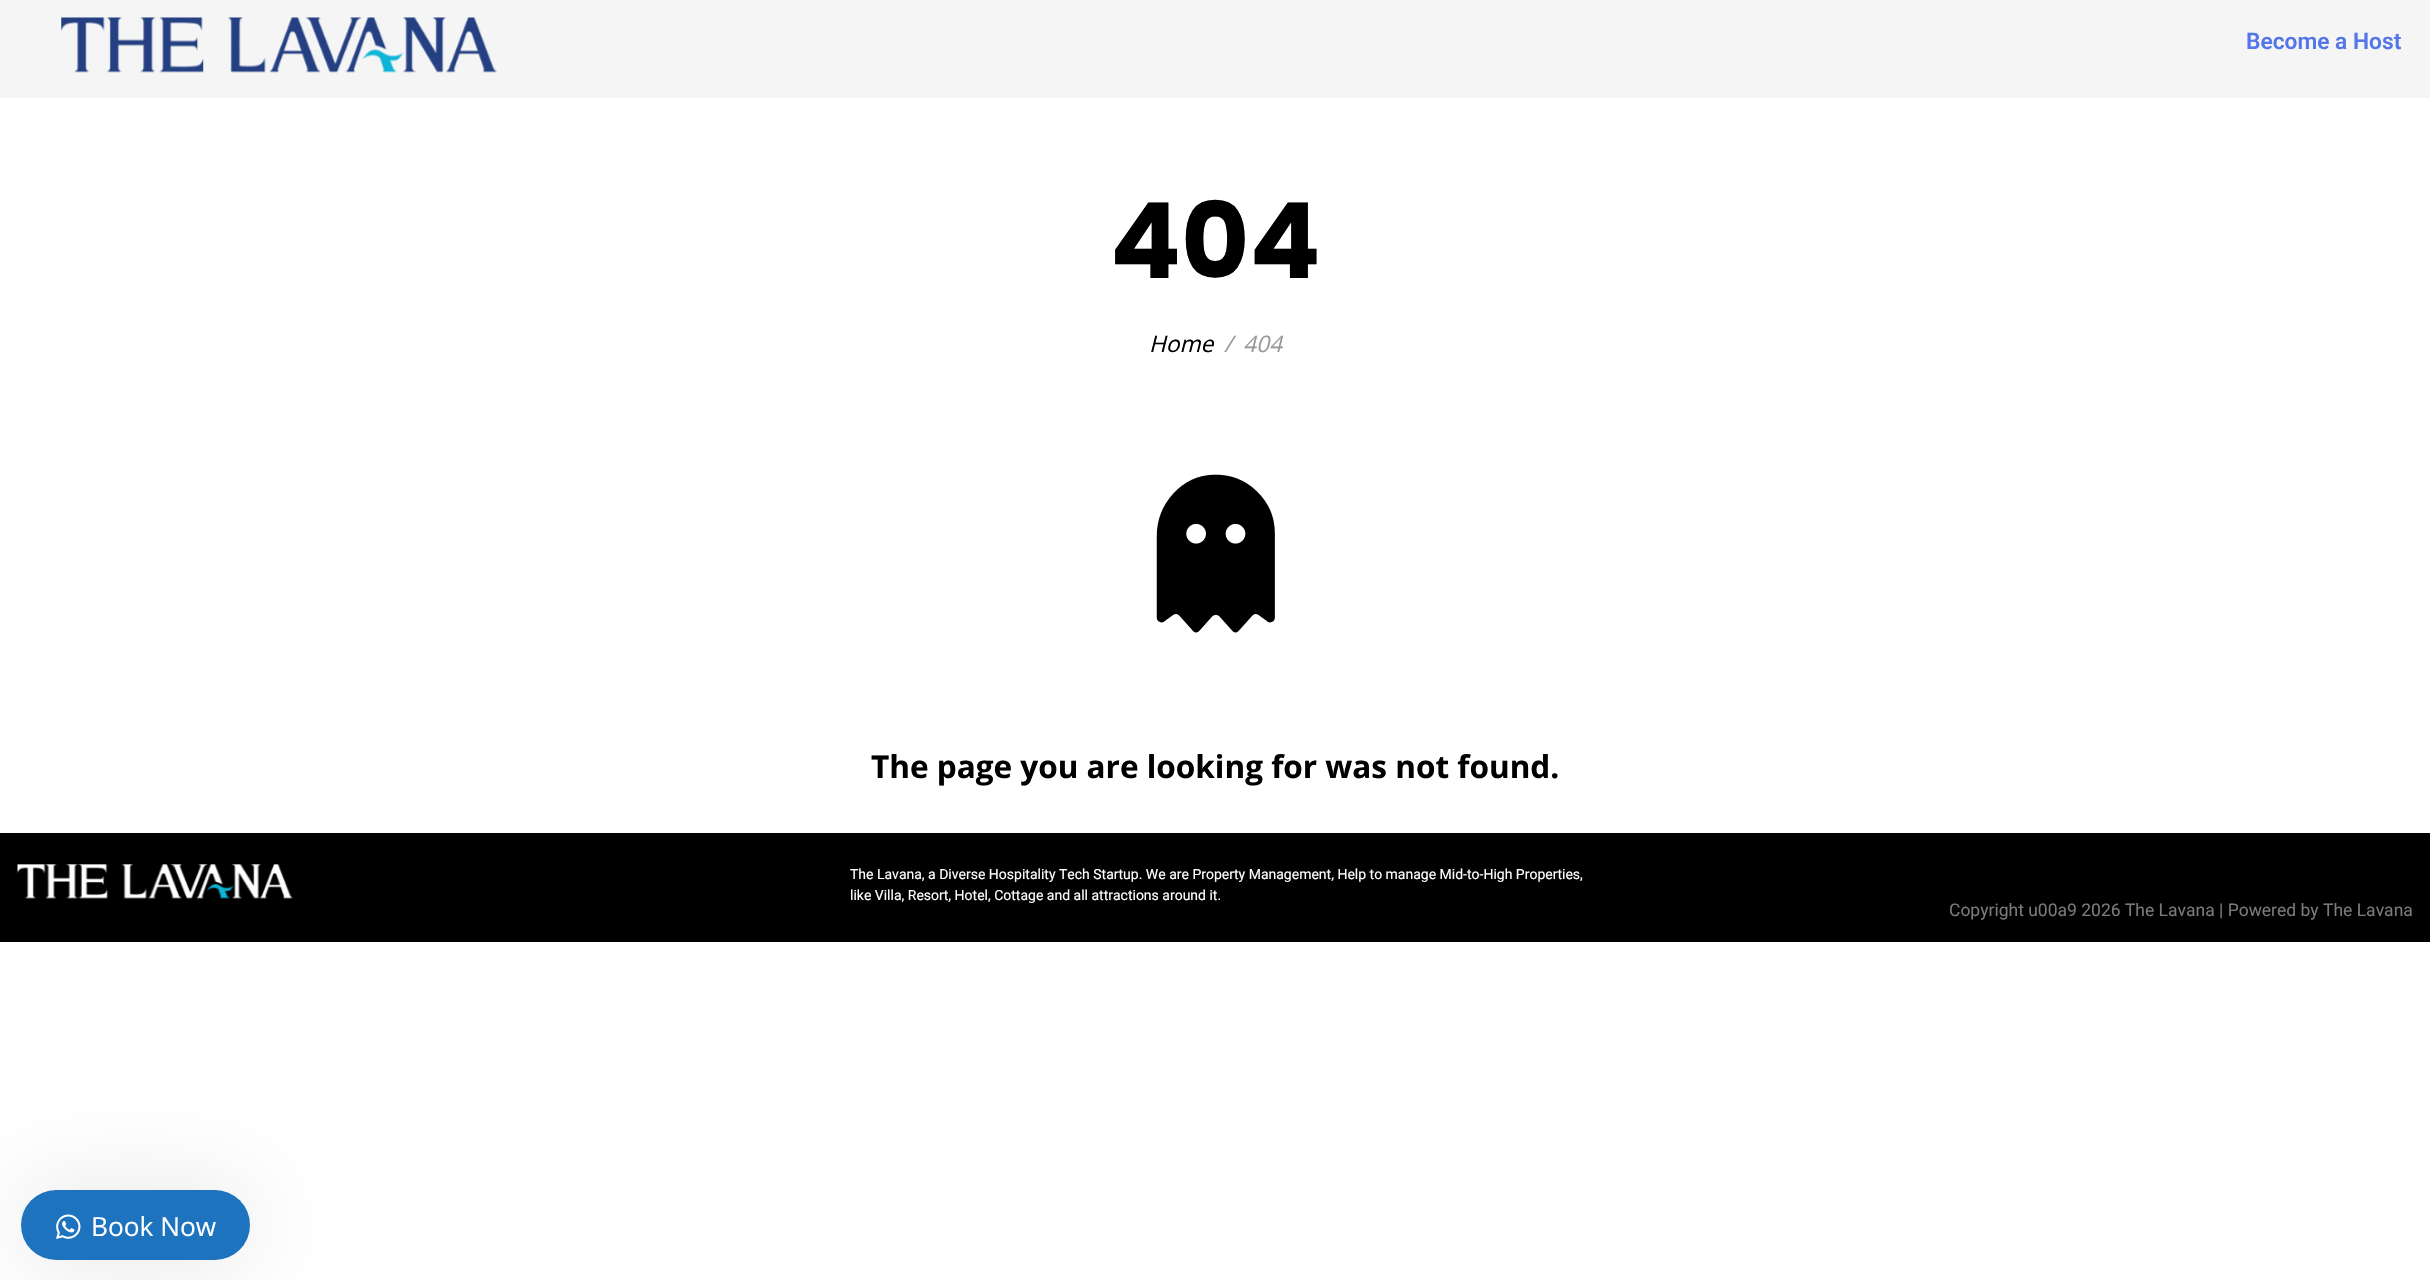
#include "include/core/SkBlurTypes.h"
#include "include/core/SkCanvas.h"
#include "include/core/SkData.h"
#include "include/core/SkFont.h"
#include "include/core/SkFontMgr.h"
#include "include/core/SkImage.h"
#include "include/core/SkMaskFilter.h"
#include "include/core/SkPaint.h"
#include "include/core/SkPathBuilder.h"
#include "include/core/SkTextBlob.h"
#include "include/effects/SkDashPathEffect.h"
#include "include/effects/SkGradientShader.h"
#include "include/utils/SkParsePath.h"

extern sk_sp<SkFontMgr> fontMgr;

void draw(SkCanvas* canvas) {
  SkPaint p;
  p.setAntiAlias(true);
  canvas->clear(SK_ColorWHITE);
  p.setColor(SkColorSetRGB(245, 245, 245));
  canvas->drawRect(SkRect::MakeLTRB(0, 0, 2430, 98), p);
  canvas->drawImageRect(SkImages::DeferredFromEncodedData(SkData::MakeFromFileName("images/1.png")), SkRect::MakeLTRB(61, 17, 497, 73), SkSamplingOptions());
  canvas->drawImageRect(SkImages::DeferredFromEncodedData(SkData::MakeFromFileName("images/2.png")), SkRect::MakeLTRB(1156, 474, 1275, 633), SkSamplingOptions());
  p.setColor(SK_ColorBLACK);
  canvas->drawRect(SkRect::MakeLTRB(0, 833, 2430, 942), p);
  canvas->drawImageRect(SkImages::DeferredFromEncodedData(SkData::MakeFromFileName("images/3.png")), SkRect::MakeLTRB(17, 864, 293, 899), SkSamplingOptions());
  p.setColor(SkColorSetARGB(26, 0, 0, 0));
  p.setMaskFilter(SkMaskFilter::MakeBlur(kNormal_SkBlurStyle, 44));
  canvas->drawRoundRect(SkRect::MakeLTRB(21, 1190, 250, 1260), 35, 35, p);
  p.setMaskFilter(nullptr);
  p.setColor(SkColorSetRGB(30, 115, 190));
  canvas->drawRoundRect(SkRect::MakeLTRB(21, 1190, 250, 1260), 35, 35, p);
  canvas->drawImageRect(SkImages::DeferredFromEncodedData(SkData::MakeFromFileName("images/4.png")), SkRect::MakeLTRB(56, 1214, 81, 1239), SkSamplingOptions());
  SkFont font1(fontMgr->matchFamilyStyle("Roboto", SkFontStyle(600, SkFontStyle::kNormal_Width, SkFontStyle::kUpright_Slant)), 22.75f);
  font1.setSubpixel(true);
  p.setColor(SkColorSetRGB(84, 118, 232));
  canvas->drawString("Become a Host", 2246, 49, font1, p);
  SkFont font2(fontMgr->matchFamilyStyle("Poppins", SkFontStyle::Bold()), 105);
  font2.setSubpixel(true);
  p.setColor(SK_ColorBLACK);
  canvas->drawString("404", 1110, 278, font2, p);
  SkFont font3(fontMgr->matchFamilyStyle("Open Sans", SkFontStyle::Italic()), 22.75f);
  font3.setSubpixel(true);
  canvas->drawString("Home", 1149, 352, font3, p);
  p.setColor(SkColorSetRGB(153, 153, 153));
  canvas->drawString("/", 1224, 352, font3, p);
  canvas->drawString("404", 1243, 352, font3, p);
  SkFont font4(fontMgr->matchFamilyStyle("Open Sans", SkFontStyle::Bold()), 31.5f);
  font4.setSubpixel(true);
  p.setColor(SK_ColorBLACK);
  canvas->drawString("The page you are looking for was not found.", 871, 778, font4, p);
  SkFont font5(fontMgr->matchFamilyStyle("Roboto", SkFontStyle::Normal()), 14);
  font5.setSubpixel(true);
  p.setColor(SK_ColorWHITE);
  canvas->drawString("The Lavana, a Diverse Hospitality Tech Startup. We are Property Management, Help to manage Mid-to-High Properties,", 850, 879, font5, p);
  canvas->drawString("like Villa, Resort, Hotel, Cottage and all attractions around it.", 850, 900, font5, p);
  SkFont font6(fontMgr->matchFamilyStyle("Roboto", SkFontStyle::Normal()), 17.5f);
  font6.setSubpixel(true);
  p.setColor(SkColorSetRGB(122, 122, 122));
  canvas->drawString("Copyright u00a9 2026 The Lavana | Powered by The Lavana", 1949, 916, font6, p);
  SkFont font7(fontMgr->matchFamilyStyle("Open Sans", SkFontStyle::Normal()), 26.25f);
  font7.setSubpixel(true);
  p.setColor(SK_ColorWHITE);
  canvas->drawString("Book Now", 91, 1236, font7, p);
}
